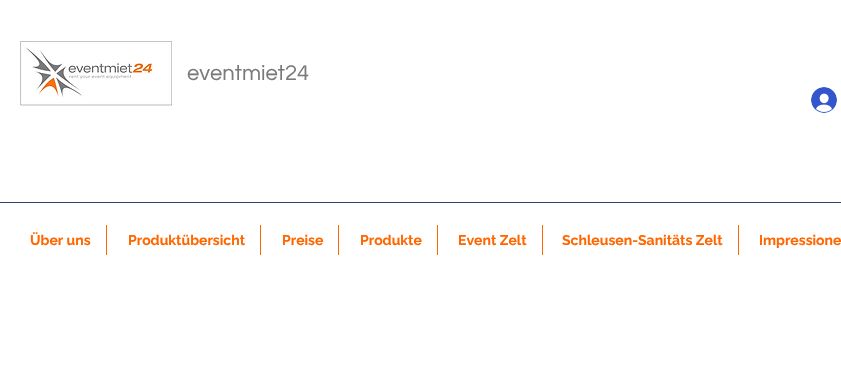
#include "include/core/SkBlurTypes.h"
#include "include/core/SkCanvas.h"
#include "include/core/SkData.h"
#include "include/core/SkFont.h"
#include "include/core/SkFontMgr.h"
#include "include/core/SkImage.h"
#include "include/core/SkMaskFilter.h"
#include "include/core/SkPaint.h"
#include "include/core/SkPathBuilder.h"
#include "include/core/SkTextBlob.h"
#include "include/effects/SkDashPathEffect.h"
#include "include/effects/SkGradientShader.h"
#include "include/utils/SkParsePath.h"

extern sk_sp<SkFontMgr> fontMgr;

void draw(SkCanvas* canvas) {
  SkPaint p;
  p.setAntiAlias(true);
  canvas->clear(SK_ColorWHITE);
  canvas->drawImageRect(SkImages::DeferredFromEncodedData(SkData::MakeFromFileName("images/1.png")), SkRect::MakeLTRB(20, 41, 172, 106), SkSamplingOptions());
  canvas->drawImageRect(SkImages::DeferredFromEncodedData(SkData::MakeFromFileName("images/2.png")), SkRect::MakeLTRB(811, 87, 837, 113), SkSamplingOptions());
  p.setColor(SkColorSetRGB(50, 65, 113));
  canvas->drawRect(SkRect::MakeLTRB(0, 202, 841, 203), p);
  p.setColor(SkColorSetRGB(255, 102, 0));
  canvas->drawRect(SkRect::MakeLTRB(106, 225, 107, 255), p);
  canvas->drawRect(SkRect::MakeLTRB(260, 225, 261, 255), p);
  canvas->drawRect(SkRect::MakeLTRB(338, 225, 339, 255), p);
  canvas->drawRect(SkRect::MakeLTRB(437, 225, 438, 255), p);
  canvas->drawRect(SkRect::MakeLTRB(542, 225, 543, 255), p);
  canvas->drawRect(SkRect::MakeLTRB(738, 225, 739, 255), p);
  SkFont font1(fontMgr->matchFamilyStyle("Questrial", SkFontStyle::Normal()), 22);
  font1.setSubpixel(true);
  p.setColor(SkColorSetRGB(123, 121, 121));
  canvas->drawString("eventmiet24", 187, 80, font1, p);
  SkFont font2(fontMgr->matchFamilyStyle("Raleway", SkFontStyle::Bold()), 14);
  font2.setSubpixel(true);
  p.setColor(SkColorSetRGB(255, 102, 0));
  canvas->drawString("Über uns", 30, 245, font2, p);
  canvas->drawString("Produktübersicht", 128, 245, font2, p);
  canvas->drawString("Preise", 282, 245, font2, p);
  canvas->drawString("Produkte", 360, 245, font2, p);
  canvas->drawString("Event Zelt", 458, 245, font2, p);
  canvas->drawString("Schleusen-Sanitäts Zelt", 562, 245, font2, p);
  canvas->drawString("Impressione", 759, 245, font2, p);
}
